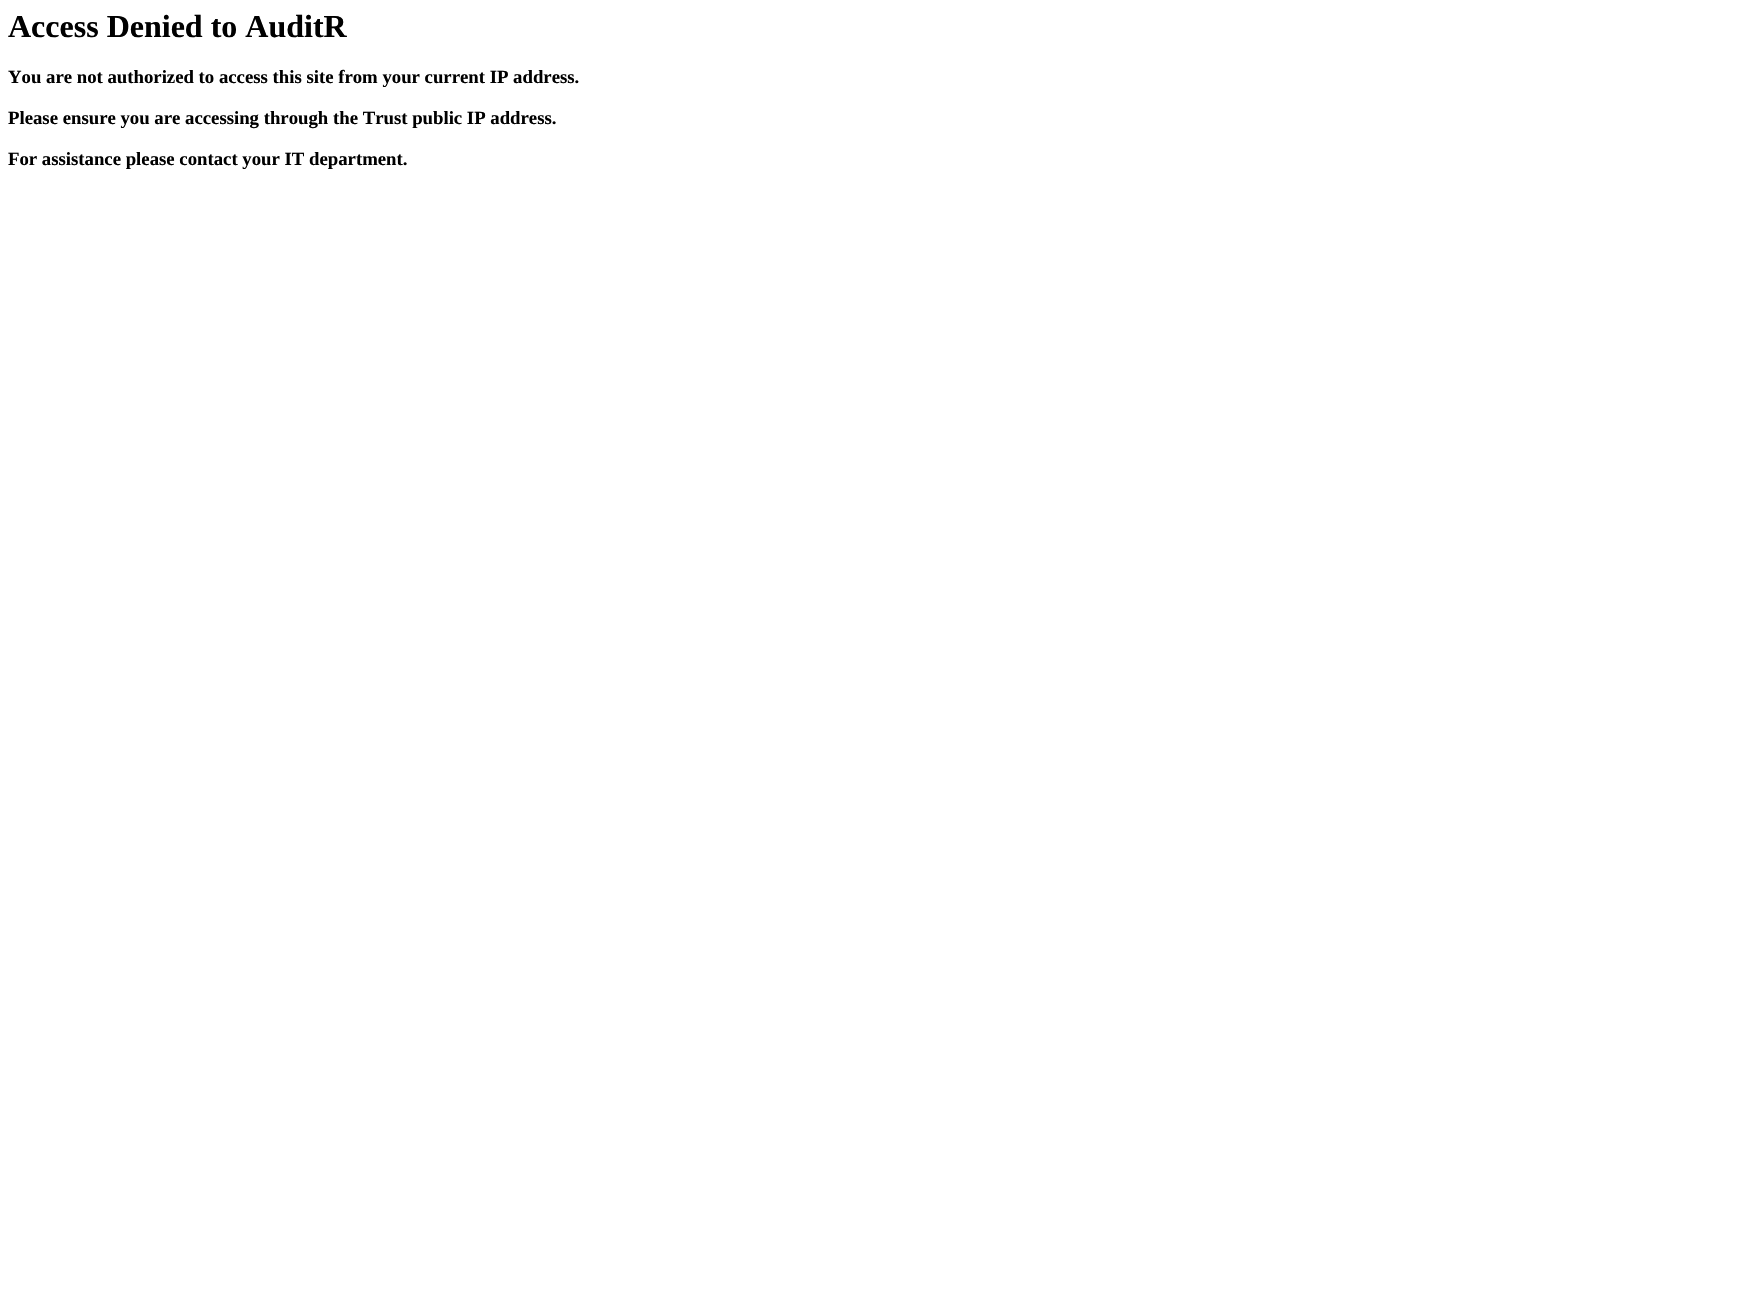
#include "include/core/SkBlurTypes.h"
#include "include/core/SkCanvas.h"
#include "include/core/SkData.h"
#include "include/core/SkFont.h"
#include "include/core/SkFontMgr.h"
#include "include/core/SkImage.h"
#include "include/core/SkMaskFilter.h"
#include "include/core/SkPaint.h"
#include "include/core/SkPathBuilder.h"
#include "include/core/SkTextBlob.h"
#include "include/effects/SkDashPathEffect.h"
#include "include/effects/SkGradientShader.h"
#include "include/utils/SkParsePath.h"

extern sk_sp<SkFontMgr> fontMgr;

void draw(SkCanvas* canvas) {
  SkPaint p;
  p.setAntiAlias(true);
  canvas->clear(SK_ColorWHITE);
  SkFont font1(fontMgr->matchFamilyStyle("Liberation Serif", SkFontStyle::Bold()), 32);
  font1.setSubpixel(true);
  p.setColor(SK_ColorBLACK);
  canvas->drawString("Access Denied to AuditR", 8, 37, font1, p);
  SkFont font2(fontMgr->matchFamilyStyle("Liberation Serif", SkFontStyle::Bold()), 18.75f);
  font2.setSubpixel(true);
  canvas->drawString("You are not authorized to access this site from your current IP address.", 8, 83, font2, p);
  canvas->drawString("Please ensure you are accessing through the Trust public IP address.", 8, 124, font2, p);
  canvas->drawString("For assistance please contact your IT department.", 8, 165, font2, p);
}
